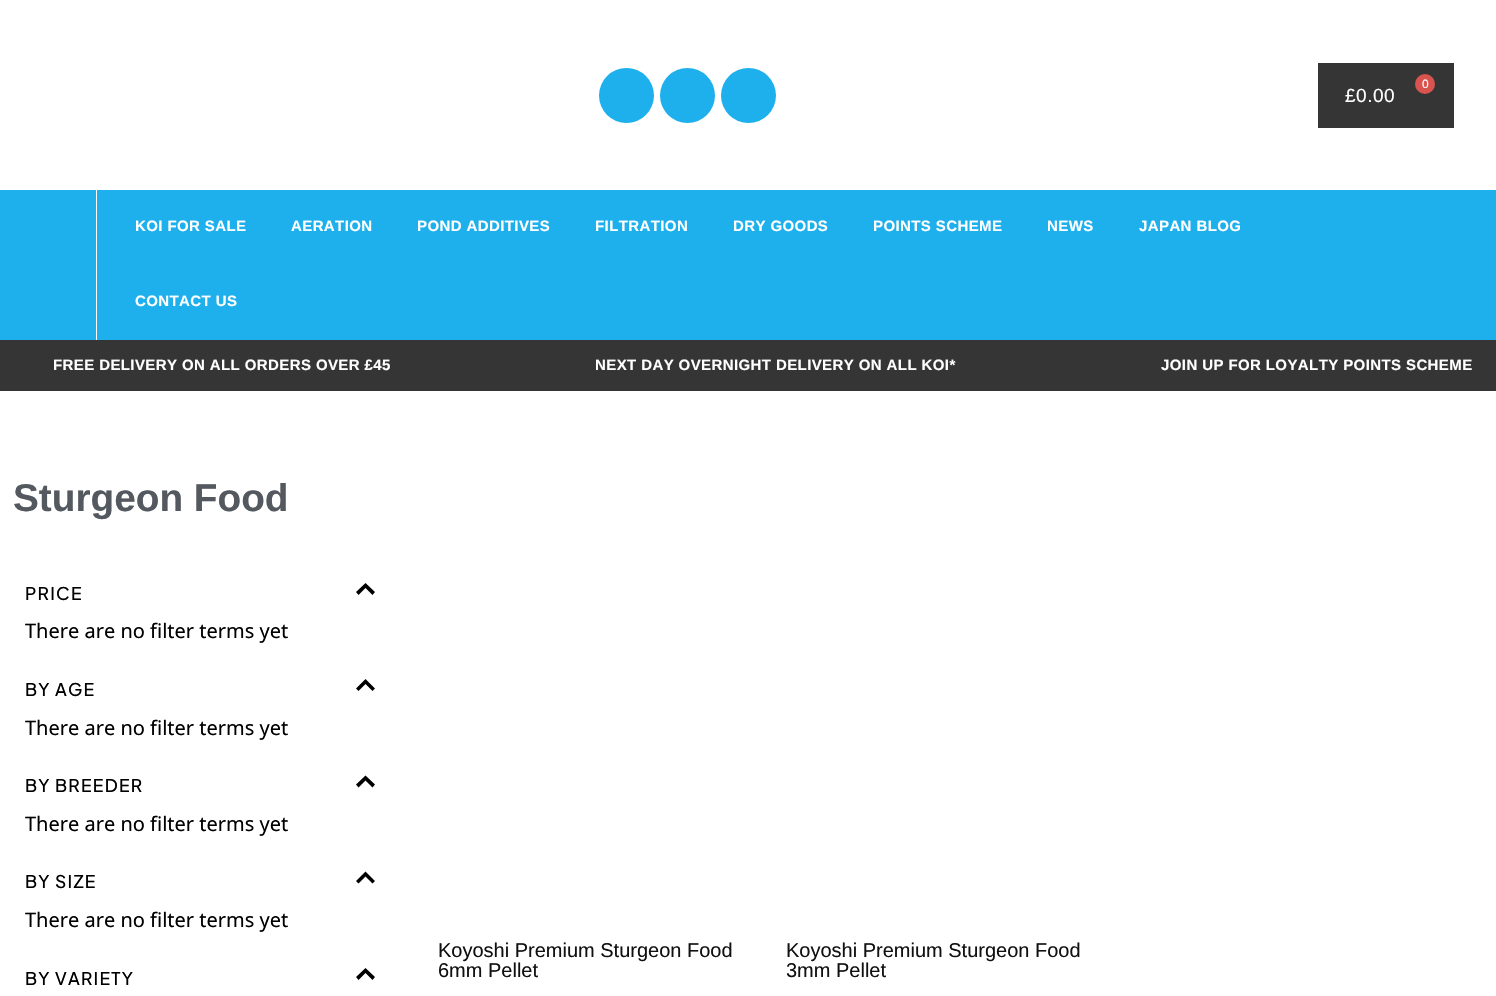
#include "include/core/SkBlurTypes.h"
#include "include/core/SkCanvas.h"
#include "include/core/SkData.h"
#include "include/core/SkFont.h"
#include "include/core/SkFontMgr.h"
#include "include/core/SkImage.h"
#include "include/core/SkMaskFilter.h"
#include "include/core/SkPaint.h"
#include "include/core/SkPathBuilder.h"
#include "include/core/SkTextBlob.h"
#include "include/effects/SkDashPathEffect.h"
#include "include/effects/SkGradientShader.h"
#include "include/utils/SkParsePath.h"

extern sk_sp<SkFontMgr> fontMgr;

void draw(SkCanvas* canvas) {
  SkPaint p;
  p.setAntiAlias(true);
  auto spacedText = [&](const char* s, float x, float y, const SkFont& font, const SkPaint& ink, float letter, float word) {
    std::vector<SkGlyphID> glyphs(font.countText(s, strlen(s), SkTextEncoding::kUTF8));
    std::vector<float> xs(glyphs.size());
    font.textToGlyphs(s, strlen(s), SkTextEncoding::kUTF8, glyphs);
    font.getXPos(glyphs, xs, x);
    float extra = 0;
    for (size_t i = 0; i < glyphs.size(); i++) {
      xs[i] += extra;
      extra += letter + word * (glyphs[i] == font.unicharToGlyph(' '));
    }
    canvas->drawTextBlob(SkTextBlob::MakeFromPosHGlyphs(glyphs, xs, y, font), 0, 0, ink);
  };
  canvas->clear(SK_ColorWHITE);
  p.setColor(SkColorSetRGB(29, 176, 237));
  canvas->drawCircle(626.5f, 95.5f, 27.5f, p);
  canvas->drawCircle(687.5f, 95.5f, 27.5f, p);
  canvas->drawCircle(748.5f, 95.5f, 27.5f, p);
  p.setColor(SkColorSetRGB(54, 53, 53));
  canvas->drawRect(SkRect::MakeLTRB(1318, 63, 1454, 128), p);
  p.setColor(SkColorSetRGB(217, 83, 79));
  canvas->drawCircle(1425, 84, 10, p);
  p.setColor(SkColorSetRGB(29, 176, 237));
  canvas->drawRect(SkRect::MakeLTRB(0, 190, 1496, 340), p);
  p.setColor(SK_ColorWHITE);
  canvas->drawRect(SkRect::MakeLTRB(96, 190, 97, 340), p);
  p.setColor(SkColorSetRGB(54, 53, 53));
  canvas->drawRect(SkRect::MakeLTRB(0, 340, 1496, 391), p);
  p.setColor(SK_ColorBLACK);
  canvas->drawPath(SkPathBuilder().moveTo(365.5f, 583).lineTo(375, 592).lineTo(372.5f, 595).lineTo(365.5f, 588).lineTo(358.5f, 595).lineTo(356, 592).close().detach(), p);
  canvas->drawPath(SkPathBuilder().moveTo(365.5f, 679).lineTo(375, 688.5f).lineTo(372.5f, 691).lineTo(365.5f, 684).lineTo(358.5f, 691).lineTo(356, 688.5f).close().detach(), p);
  canvas->drawPath(SkPathBuilder().moveTo(365.5f, 775.5f).lineTo(375, 784.5f).lineTo(372.5f, 787.5f).lineTo(365.5f, 780.5f).lineTo(358.5f, 787.5f).lineTo(356, 784.5f).close().detach(), p);
  canvas->drawPath(SkPathBuilder().moveTo(365.5f, 871.5f).lineTo(375, 881).lineTo(372.5f, 883.5f).lineTo(365.5f, 876.5f).lineTo(358.5f, 883.5f).lineTo(356, 881).close().detach(), p);
  canvas->drawPath(SkPathBuilder().moveTo(365.5f, 968).lineTo(375, 977).lineTo(372.5f, 980).lineTo(365.5f, 973).lineTo(358.5f, 980).lineTo(356, 977).close().detach(), p);
  SkFont font1(fontMgr->matchFamilyStyle("Liberation Sans", SkFontStyle::Normal()), 12);
  font1.setSubpixel(true);
  p.setColor(SK_ColorWHITE);
  spacedText("0", 1422, 88, font1, p, 0.5f, 0);
  SkFont font2(fontMgr->matchFamilyStyle("Liberation Sans", SkFontStyle::Normal()), 19);
  font2.setSubpixel(true);
  spacedText("£0.00", 1345, 102, font2, p, 0.5f, 0);
  SkFont font3(fontMgr->matchFamilyStyle("Liberation Sans", SkFontStyle::Bold()), 15);
  font3.setSubpixel(true);
  spacedText("KOI FOR SALE", 135, 231, font3, p, 0.4f, 0);
  spacedText("AERATION", 291, 231, font3, p, 0.4f, 0);
  spacedText("POND ADDITIVES", 417, 231, font3, p, 0.4f, 0);
  spacedText("FILTRATION", 595, 231, font3, p, 0.4f, 0);
  spacedText("DRY GOODS", 733, 231, font3, p, 0.4f, 0);
  spacedText("POINTS SCHEME", 873, 231, font3, p, 0.4f, 0);
  spacedText("NEWS", 1047, 231, font3, p, 0.4f, 0);
  spacedText("JAPAN BLOG", 1139, 231, font3, p, 0.4f, 0);
  spacedText("CONTACT US", 135, 306, font3, p, 0.4f, 0);
  spacedText("FREE DELIVERY ON ALL ORDERS OVER £45", 53, 370, font3, p, 0.4f, 0);
  spacedText("NEXT DAY OVERNIGHT DELIVERY ON ALL KOI*", 595, 370, font3, p, 0.4f, 0);
  spacedText("JOIN UP FOR LOYALTY POINTS SCHEME", 1161, 370, font3, p, 0.4f, 0);
  SkFont font4(fontMgr->matchFamilyStyle("Liberation Sans", SkFontStyle::Bold()), 38.75f);
  font4.setSubpixel(true);
  p.setColor(SkColorSetRGB(84, 89, 95));
  canvas->drawString("Sturgeon Food", 13, 511, font4, p);
  SkFont font5(fontMgr->matchFamilyStyle("Plus Jakarta Sans", SkFontStyle(500, SkFontStyle::kNormal_Width, SkFontStyle::kUpright_Slant)), 17.5f);
  font5.setSubpixel(true);
  p.setColor(SK_ColorBLACK);
  spacedText("PRICE", 25, 600, font5, p, 1.25f, 0);
  SkFont font6(fontMgr->matchFamilyStyle("Noto Sans", SkFontStyle::Normal()), 20);
  font6.setSubpixel(true);
  canvas->drawString("There are no filter terms yet", 25, 638, font6, p);
  spacedText("BY AGE", 25, 696, font5, p, 1.25f, 0);
  canvas->drawString("There are no filter terms yet", 25, 735, font6, p);
  spacedText("BY BREEDER", 25, 792, font5, p, 1.25f, 0);
  canvas->drawString("There are no filter terms yet", 25, 831, font6, p);
  spacedText("BY SIZE", 25, 888, font5, p, 1.25f, 0);
  canvas->drawString("There are no filter terms yet", 25, 927, font6, p);
  spacedText("BY VARIETY", 25, 985, font5, p, 1.25f, 0);
  SkFont font7(fontMgr->matchFamilyStyle("Liberation Sans", SkFontStyle::Normal()), 20);
  font7.setSubpixel(true);
  p.setColor(SkColorSetRGB(17, 17, 17));
  canvas->drawString("Koyoshi Premium Sturgeon Food", 438, 957, font7, p);
  canvas->drawString("6mm Pellet", 438, 977, font7, p);
  canvas->drawString("Koyoshi Premium Sturgeon Food", 786, 957, font7, p);
  canvas->drawString("3mm Pellet", 786, 977, font7, p);
}
